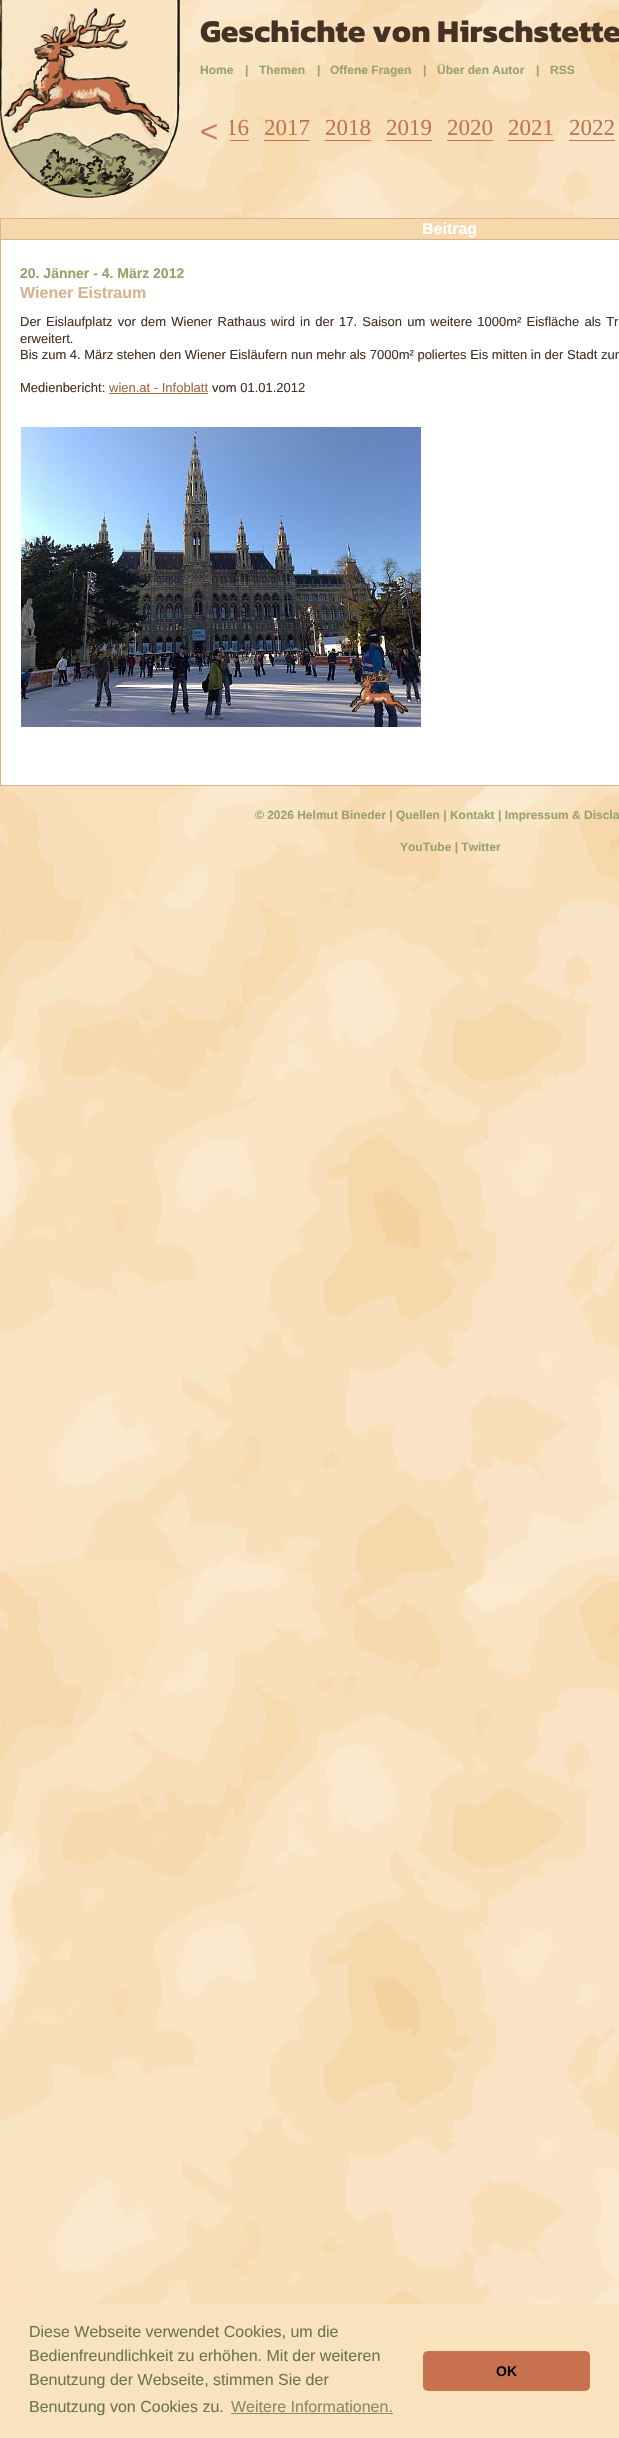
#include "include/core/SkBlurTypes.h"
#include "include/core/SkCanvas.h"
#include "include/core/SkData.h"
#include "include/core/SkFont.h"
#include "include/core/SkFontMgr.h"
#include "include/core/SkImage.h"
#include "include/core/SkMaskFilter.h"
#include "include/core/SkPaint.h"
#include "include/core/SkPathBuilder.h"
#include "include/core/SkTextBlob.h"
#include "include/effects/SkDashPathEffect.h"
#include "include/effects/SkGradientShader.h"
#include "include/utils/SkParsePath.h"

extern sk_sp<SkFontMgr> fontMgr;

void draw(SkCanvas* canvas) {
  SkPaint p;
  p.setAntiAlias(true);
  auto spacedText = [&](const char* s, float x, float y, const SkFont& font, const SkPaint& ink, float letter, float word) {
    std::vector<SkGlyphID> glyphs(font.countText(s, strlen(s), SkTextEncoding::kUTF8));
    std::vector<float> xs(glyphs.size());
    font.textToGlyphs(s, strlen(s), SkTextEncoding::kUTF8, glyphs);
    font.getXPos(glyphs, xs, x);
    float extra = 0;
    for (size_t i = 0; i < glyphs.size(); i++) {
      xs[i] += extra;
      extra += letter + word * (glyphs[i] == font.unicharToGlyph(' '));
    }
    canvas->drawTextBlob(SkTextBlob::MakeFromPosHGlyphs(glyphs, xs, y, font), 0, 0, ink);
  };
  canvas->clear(SK_ColorWHITE);
  canvas->drawImageRect(SkImages::DeferredFromEncodedData(SkData::MakeFromFileName("images/1.png")), SkRect::MakeLTRB(0, 0, 619, 2304), SkSamplingOptions());
  canvas->drawImageRect(SkImages::DeferredFromEncodedData(SkData::MakeFromFileName("images/2.png")), SkRect::MakeLTRB(0, 0, 180, 198), SkSamplingOptions());
  p.setColor(SkColorSetRGB(200, 113, 79));
  canvas->drawRect(SkRect::MakeLTRB(230, 140, 249, 141), p);
  canvas->drawRect(SkRect::MakeLTRB(264, 140, 310, 141), p);
  canvas->drawRect(SkRect::MakeLTRB(325, 140, 371, 141), p);
  canvas->drawRect(SkRect::MakeLTRB(386, 140, 432, 141), p);
  canvas->drawRect(SkRect::MakeLTRB(447, 140, 493, 141), p);
  canvas->drawRect(SkRect::MakeLTRB(508, 140, 554, 141), p);
  canvas->drawRect(SkRect::MakeLTRB(569, 140, 615, 141), p);
  p.setColor(SkColorSetRGB(246, 216, 171));
  canvas->drawRect(SkRect::MakeLTRB(1, 219, 619, 239), p);
  p.setColor(SkColorSetRGB(220, 177, 143));
  canvas->drawRect(SkRect::MakeLTRB(0, 218, 619, 219), p);
  canvas->drawRect(SkRect::MakeLTRB(0, 218, 1, 239), p);
  p.setColor(SK_ColorWHITE);
  canvas->drawRect(SkRect::MakeLTRB(1, 240, 619, 785), p);
  p.setColor(SkColorSetRGB(220, 177, 143));
  canvas->drawRect(SkRect::MakeLTRB(0, 239, 619, 240), p);
  canvas->drawRect(SkRect::MakeLTRB(0, 239, 1, 785), p);
  p.setColor(SkColorSetRGB(158, 107, 71));
  canvas->drawRect(SkRect::MakeLTRB(109, 393, 208, 394), p);
  canvas->drawImageRect(SkImages::DeferredFromEncodedData(SkData::MakeFromFileName("images/3.png")), SkRect::MakeLTRB(21, 427, 421, 727), SkSamplingOptions());
  p.setColor(SkColorSetRGB(220, 177, 143));
  canvas->drawRect(SkRect::MakeLTRB(0, 785, 619, 786), p);
  p.setColor(SkColorSetRGB(249, 226, 190));
  canvas->drawRect(SkRect::MakeLTRB(0, 2304, 619, 2438), p);
  p.setColor(SkColorSetRGB(140, 137, 102));
  canvas->drawRect(SkRect::MakeLTRB(231, 2413, 393, 2414), p);
  p.setColor(SkColorSetRGB(200, 113, 79));
  canvas->drawRoundRect(SkRect::MakeLTRB(423, 2351, 590, 2391), 5, 5, p);
  SkFont font1(fontMgr->matchFamilyStyle("Kanit", SkFontStyle::Bold()), 32);
  font1.setSubpixel(true);
  p.setColor(SkColorSetRGB(70, 50, 36));
  canvas->drawString("Geschichte von Hirschstette", 200, 42, font1, p);
  SkFont font2(fontMgr->matchFamilyStyle("Liberation Sans", SkFontStyle::Bold()), 12);
  font2.setSubpixel(true);
  p.setColor(SkColorSetRGB(157, 160, 108));
  canvas->drawString("Home", 200, 74, font2, p);
  canvas->drawString("|", 245, 74, font2, p);
  canvas->drawString("Themen", 259, 74, font2, p);
  canvas->drawString("|", 317, 74, font2, p);
  canvas->drawString("Offene Fragen", 330, 74, font2, p);
  canvas->drawString("|", 423, 74, font2, p);
  canvas->drawString("Über den Autor", 437, 74, font2, p);
  canvas->drawString("|", 536, 74, font2, p);
  canvas->drawString("RSS", 550, 74, font2, p);
  SkFont font3(fontMgr->matchFamilyStyle("Liberation Sans", SkFontStyle::Normal()), 31);
  font3.setSubpixel(true);
  p.setColor(SkColorSetRGB(205, 125, 91));
  canvas->drawString("<", 200, 142, font3, p);
  canvas->save();
  canvas->clipRect(SkRect::MakeLTRB(230, 116, 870, 176));
  SkFont font4(fontMgr->matchFamilyStyle("Liberation Serif", SkFontStyle::Normal()), 23);
  font4.setSubpixel(true);
  p.setColor(SkColorSetRGB(200, 113, 79));
  canvas->drawString("16", 226, 135, font4, p);
  canvas->restore();
  canvas->drawString("2017", 264, 135, font4, p);
  canvas->drawString("2018", 325, 135, font4, p);
  canvas->drawString("2019", 386, 135, font4, p);
  canvas->drawString("2020", 447, 135, font4, p);
  canvas->drawString("2021", 508, 135, font4, p);
  canvas->drawString("2022", 569, 135, font4, p);
  SkFont font5(fontMgr->matchFamilyStyle("Liberation Sans", SkFontStyle::Bold()), 16);
  font5.setSubpixel(true);
  p.setColor(SK_ColorWHITE);
  canvas->drawString("Beitrag", 422, 234, font5, p);
  SkFont font6(fontMgr->matchFamilyStyle("Liberation Sans", SkFontStyle::Bold()), 14);
  font6.setSubpixel(true);
  p.setColor(SkColorSetRGB(157, 160, 108));
  canvas->drawString("20. Jänner - 4. März 2012", 20, 278, font6, p);
  p.setColor(SkColorSetRGB(220, 177, 143));
  canvas->drawString("Wiener Eistraum", 20, 298, font5, p);
  SkFont font7(fontMgr->matchFamilyStyle("Liberation Sans", SkFontStyle::Normal()), 13);
  font7.setSubpixel(true);
  p.setColor(SkColorSetRGB(70, 50, 36));
  spacedText("Der Eislaufplatz vor dem Wiener Rathaus wird in der 17. Saison um weitere 1000m² Eisfläche als Tr", 20, 326, font7, p, 0, 1.5f);
  canvas->drawString("erweitert.", 20, 343, font7, p);
  canvas->drawString("Bis zum 4. März stehen den Wiener Eisläufern nun mehr als 7000m² poliertes Eis mitten in der Stadt zur", 20, 359, font7, p);
  canvas->drawString("Medienbericht:", 20, 392, font7, p);
  p.setColor(SkColorSetRGB(158, 107, 71));
  canvas->drawString("wien.at - Infoblatt", 109, 392, font7, p);
  p.setColor(SkColorSetRGB(70, 50, 36));
  canvas->drawString("vom 01.01.2012", 212, 392, font7, p);
  p.setColor(SkColorSetRGB(157, 160, 108));
  canvas->drawString("© 2026 Helmut Bineder | Quellen | Kontakt | Impressum & Discla", 255, 819, font2, p);
  canvas->drawString("YouTube | Twitter", 400, 851, font2, p);
  SkFont font8(fontMgr->matchFamilyStyle("Liberation Sans", SkFontStyle::Normal()), 16);
  font8.setSubpixel(true);
  p.setColor(SkColorSetRGB(113, 115, 80));
  canvas->drawString("Diese Webseite verwendet Cookies, um die", 29, 2337, font8, p);
  canvas->drawString("Bedienfreundlichkeit zu erhöhen. Mit der weiteren", 29, 2361, font8, p);
  canvas->drawString("Benutzung der Webseite, stimmen Sie der", 29, 2385, font8, p);
  canvas->drawString("Benutzung von Cookies zu.", 29, 2412, font8, p);
  p.setColor(SkColorSetRGB(140, 137, 102));
  canvas->drawString("Weitere Informationen.", 231, 2412, font8, p);
  p.setColor(SK_ColorBLACK);
  canvas->drawString("OK", 496, 2376, font6, p);
}
